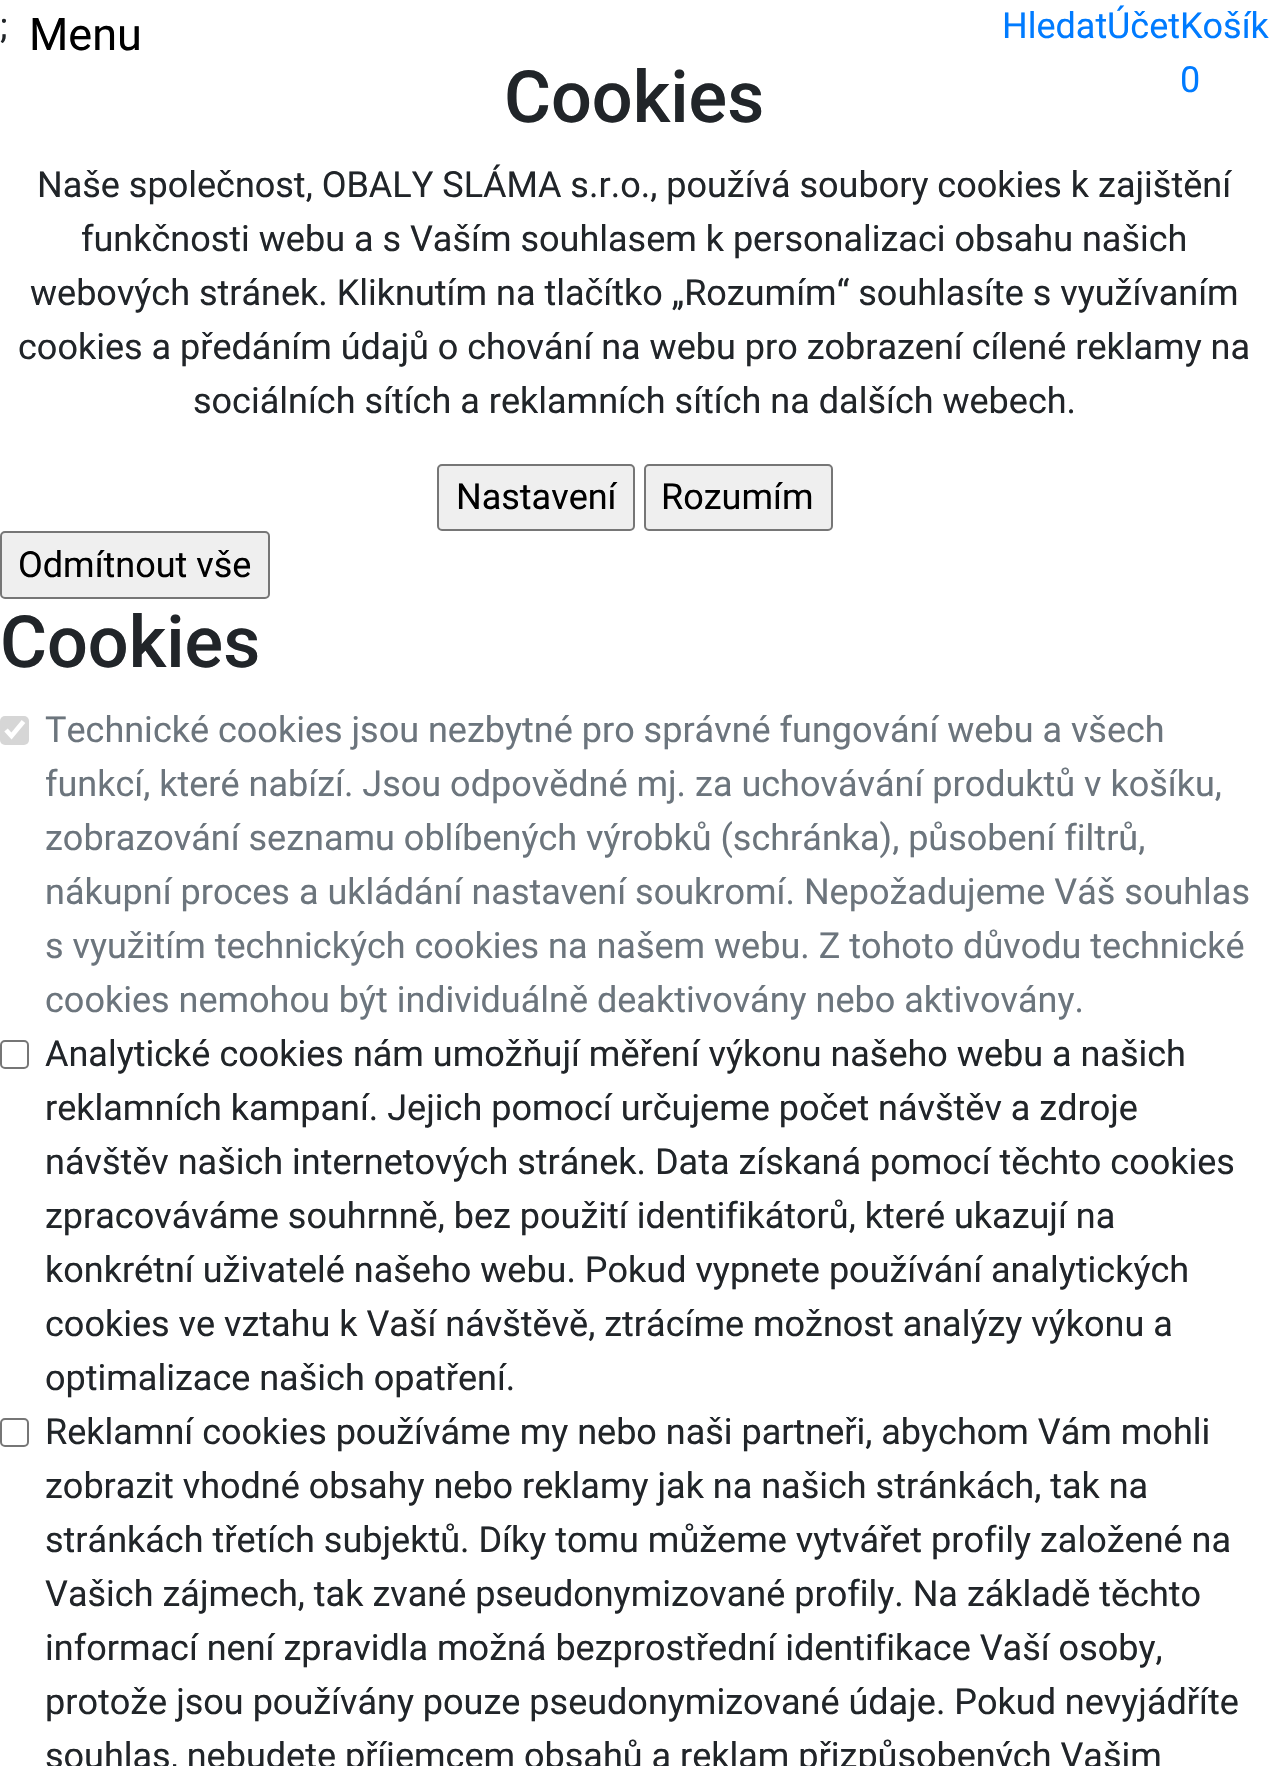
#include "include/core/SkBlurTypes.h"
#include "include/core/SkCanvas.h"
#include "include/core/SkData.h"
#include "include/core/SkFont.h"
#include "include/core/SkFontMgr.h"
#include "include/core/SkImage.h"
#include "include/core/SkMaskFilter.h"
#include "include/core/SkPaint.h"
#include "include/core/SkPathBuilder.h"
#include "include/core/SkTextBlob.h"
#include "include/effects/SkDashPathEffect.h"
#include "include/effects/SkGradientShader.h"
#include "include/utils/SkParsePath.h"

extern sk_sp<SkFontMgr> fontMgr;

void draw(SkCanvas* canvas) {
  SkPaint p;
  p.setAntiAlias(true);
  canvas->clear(SK_ColorWHITE);
  p.setColor(SkColorSetRGB(239, 239, 239));
  canvas->drawRoundRect(SkRect::MakeLTRB(438, 465, 634, 530), 4, 4, p);
  p.setStyle(SkPaint::kStroke_Style);
  p.setStrokeWidth(2);
  p.setColor(SkColorSetRGB(118, 118, 118));
  canvas->drawRoundRect(SkRect::MakeLTRB(438, 465, 634, 530), 4, 4, p);
  p.setStyle(SkPaint::kFill_Style);
  p.setColor(SkColorSetRGB(239, 239, 239));
  canvas->drawRoundRect(SkRect::MakeLTRB(645, 465, 832, 530), 4, 4, p);
  p.setStyle(SkPaint::kStroke_Style);
  p.setColor(SkColorSetRGB(118, 118, 118));
  canvas->drawRoundRect(SkRect::MakeLTRB(645, 465, 832, 530), 4, 4, p);
  p.setStyle(SkPaint::kFill_Style);
  p.setColor(SkColorSetRGB(239, 239, 239));
  canvas->drawRoundRect(SkRect::MakeLTRB(1, 532, 269, 598), 4, 4, p);
  p.setStyle(SkPaint::kStroke_Style);
  p.setColor(SkColorSetRGB(118, 118, 118));
  canvas->drawRoundRect(SkRect::MakeLTRB(1, 532, 269, 598), 4, 4, p);
  p.setStyle(SkPaint::kFill_Style);
  p.setColor(SkColorSetRGB(214, 214, 214));
  canvas->drawRoundRect(SkRect::MakeLTRB(0, 716, 29, 745), 5, 5, p);
  p.setStyle(SkPaint::kStroke_Style);
  p.setStrokeWidth(4.7f);
  p.setColor(SK_ColorWHITE);
  canvas->drawPath(SkPathBuilder().moveTo(6, 730).lineTo(11.5f, 736).lineTo(23.5f, 721.5f).detach(), p);
  p.setStrokeWidth(2);
  p.setColor(SkColorSetRGB(118, 118, 118));
  canvas->drawRoundRect(SkRect::MakeLTRB(1, 1041, 28, 1068), 4, 4, p);
  canvas->drawRoundRect(SkRect::MakeLTRB(1, 1419, 28, 1446), 4, 4, p);
  SkFont font1(fontMgr->matchFamilyStyle("Roboto", SkFontStyle::Normal()), 36);
  font1.setSubpixel(true);
  p.setStyle(SkPaint::kFill_Style);
  p.setColor(SkColorSetRGB(33, 37, 41));
  canvas->drawString(";", 0, 38, font1, p);
  SkFont font2(fontMgr->matchFamilyStyle("Roboto", SkFontStyle::Normal()), 45);
  font2.setSubpixel(true);
  p.setColor(SK_ColorBLACK);
  canvas->drawString("Menu", 29, 50, font2, p);
  p.setColor(SkColorSetRGB(0, 123, 255));
  canvas->drawString("Hledat", 1002, 38, font1, p);
  canvas->drawString("Účet", 1107, 38, font1, p);
  canvas->drawString("Košík", 1180, 38, font1, p);
  canvas->drawString("0", 1180, 92, font1, p);
  SkFont font3(fontMgr->matchFamilyStyle("Roboto", SkFontStyle(500, SkFontStyle::kNormal_Width, SkFontStyle::kUpright_Slant)), 72);
  font3.setSubpixel(true);
  p.setColor(SkColorSetRGB(33, 37, 41));
  canvas->drawString("Cookies", 504, 122, font3, p);
  canvas->drawString("Naše společnost, OBALY SLÁMA s.r.o., používá soubory cookies k zajištění", 37, 197, font1, p);
  canvas->drawString("funkčnosti webu a s Vaším souhlasem k personalizaci obsahu našich", 81, 251, font1, p);
  canvas->drawString("webových stránek. Kliknutím na tlačítko „Rozumím“ souhlasíte s využívaním", 30, 305, font1, p);
  canvas->drawString("cookies a předáním údajů o chování na webu pro zobrazení cílené reklamy na", 18, 359, font1, p);
  canvas->drawString("sociálních sítích a reklamních sítích na dalších webech.", 193, 413, font1, p);
  p.setColor(SK_ColorBLACK);
  canvas->drawString("Nastavení", 456, 509, font1, p);
  canvas->drawString("Rozumím", 661, 509, font1, p);
  canvas->drawString("Odmítnout vše", 18, 577, font1, p);
  p.setColor(SkColorSetRGB(33, 37, 41));
  canvas->drawString("Cookies", 0, 667, font3, p);
  p.setColor(SkColorSetRGB(108, 117, 125));
  canvas->drawString("Technické cookies jsou nezbytné pro správné fungování webu a všech", 45, 742, font1, p);
  canvas->drawString("funkcí, které nabízí. Jsou odpovědné mj. za uchovávání produktů v košíku,", 45, 796, font1, p);
  canvas->drawString("zobrazování seznamu oblíbených výrobků (schránka), působení filtrů,", 45, 850, font1, p);
  canvas->drawString("nákupní proces a ukládání nastavení soukromí. Nepožadujeme Váš souhlas", 45, 904, font1, p);
  canvas->drawString("s využitím technických cookies na našem webu. Z tohoto důvodu technické", 45, 958, font1, p);
  canvas->drawString("cookies nemohou být individuálně deaktivovány nebo aktivovány.", 45, 1012, font1, p);
  p.setColor(SkColorSetRGB(33, 37, 41));
  canvas->drawString("Analytické cookies nám umožňují měření výkonu našeho webu a našich", 45, 1066, font1, p);
  canvas->drawString("reklamních kampaní. Jejich pomocí určujeme počet návštěv a zdroje", 45, 1120, font1, p);
  canvas->drawString("návštěv našich internetových stránek. Data získaná pomocí těchto cookies", 45, 1174, font1, p);
  canvas->drawString("zpracováváme souhrnně, bez použití identifikátorů, které ukazují na", 45, 1228, font1, p);
  canvas->drawString("konkrétní uživatelé našeho webu. Pokud vypnete používání analytických", 45, 1282, font1, p);
  canvas->drawString("cookies ve vztahu k Vaší návštěvě, ztrácíme možnost analýzy výkonu a", 45, 1336, font1, p);
  canvas->drawString("optimalizace našich opatření.", 45, 1390, font1, p);
  canvas->drawString("Reklamní cookies používáme my nebo naši partneři, abychom Vám mohli", 45, 1444, font1, p);
  canvas->drawString("zobrazit vhodné obsahy nebo reklamy jak na našich stránkách, tak na", 45, 1498, font1, p);
  canvas->drawString("stránkách třetích subjektů. Díky tomu můžeme vytvářet profily založené na", 45, 1552, font1, p);
  canvas->drawString("Vašich zájmech, tak zvané pseudonymizované profily. Na základě těchto", 45, 1606, font1, p);
  canvas->drawString("informací není zpravidla možná bezprostřední identifikace Vaší osoby,", 45, 1660, font1, p);
  canvas->drawString("protože jsou používány pouze pseudonymizované údaje. Pokud nevyjádříte", 45, 1714, font1, p);
  canvas->drawString("souhlas, nebudete příjemcem obsahů a reklam přizpůsobených Vašim", 45, 1768, font1, p);
}
